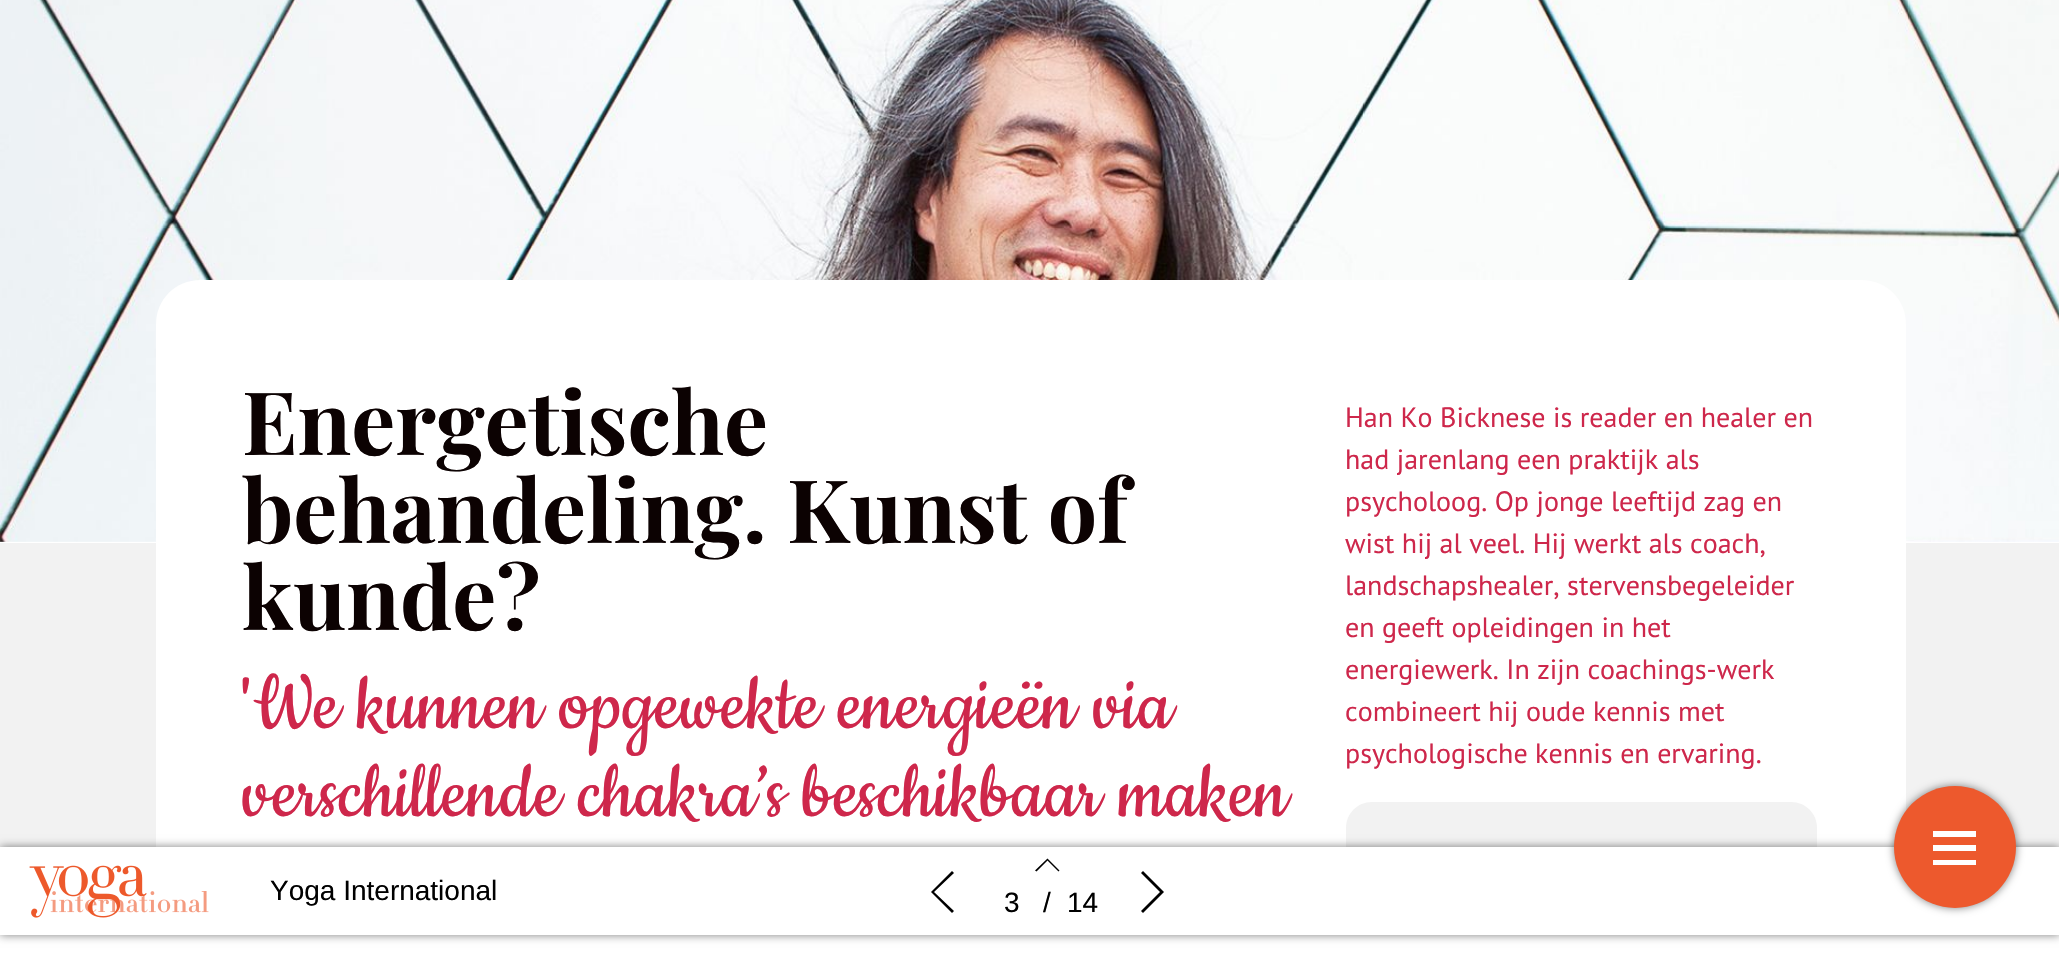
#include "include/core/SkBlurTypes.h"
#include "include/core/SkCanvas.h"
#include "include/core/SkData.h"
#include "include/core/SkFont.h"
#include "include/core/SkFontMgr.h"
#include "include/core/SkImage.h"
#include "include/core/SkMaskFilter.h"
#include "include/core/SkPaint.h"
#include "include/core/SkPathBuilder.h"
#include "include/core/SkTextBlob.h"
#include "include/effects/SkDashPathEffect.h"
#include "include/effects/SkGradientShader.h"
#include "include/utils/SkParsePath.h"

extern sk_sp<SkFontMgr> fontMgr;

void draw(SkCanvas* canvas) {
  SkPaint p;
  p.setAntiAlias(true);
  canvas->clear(SK_ColorWHITE);
  canvas->drawImageRect(SkImages::DeferredFromEncodedData(SkData::MakeFromFileName("images/1.png")), SkRect::MakeLTRB(0, 0, 2059, 542), SkSamplingOptions());
  p.setColor(SkColorSetRGB(242, 242, 242));
  canvas->drawRect(SkRect::MakeLTRB(0, 543, 2059, 847), p);
  p.setColor(SK_ColorWHITE);
  canvas->drawPath(SkPathBuilder().moveTo(200, 280).lineTo(1862, 280).cubicTo(1886.5f, 280, 1906, 299.5f, 1906, 324).lineTo(1906, 847).lineTo(156, 847).lineTo(156, 324).cubicTo(156, 299.5f, 175.5f, 280, 200, 280).close().detach(), p);
  p.setColor(SkColorSetRGB(242, 242, 242));
  canvas->drawPath(SkPathBuilder().moveTo(1372, 802).lineTo(1791, 802).cubicTo(1805.5f, 802, 1817, 813.5f, 1817, 828).lineTo(1817, 847).lineTo(1346, 847).lineTo(1346, 828).cubicTo(1346, 813.5f, 1357.5f, 802, 1372, 802).close().detach(), p);
  p.setColor(SkColorSetARGB(128, 0, 0, 0));
  p.setMaskFilter(SkMaskFilter::MakeBlur(kNormal_SkBlurStyle, 4.5f));
  canvas->drawRect(SkRect::MakeLTRB(0, 847, 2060, 935), p);
  p.setMaskFilter(nullptr);
  p.setColor(SK_ColorWHITE);
  canvas->drawRect(SkRect::MakeLTRB(0, 847, 2059, 935), p);
  canvas->drawImageRect(SkImages::DeferredFromEncodedData(SkData::MakeFromFileName("images/2.png")), SkRect::MakeLTRB(29, 865, 209, 918), SkSamplingOptions());
  p.setColor(SK_ColorBLACK);
  canvas->drawPath(SkPathBuilder().moveTo(934, 892).lineTo(954, 911).lineTo(952, 913).lineTo(931, 892).lineTo(952, 871).lineTo(954, 873).close().detach(), p);
  canvas->drawPath(SkPathBuilder().moveTo(1059.5f, 870.5f).lineTo(1058.5f, 871.5f).lineTo(1047.5f, 860.5f).lineTo(1036.5f, 871.5f).lineTo(1035, 870.5f).lineTo(1047.5f, 858.5f).close().detach(), p);
  canvas->drawPath(SkPathBuilder().moveTo(1164, 892).lineTo(1143, 913).lineTo(1141, 911).lineTo(1160, 892).lineTo(1141, 873).lineTo(1143, 871).close().detach(), p);
  p.setColor(SkColorSetARGB(128, 0, 0, 0));
  p.setMaskFilter(SkMaskFilter::MakeBlur(kNormal_SkBlurStyle, 4.5f));
  canvas->drawRoundRect(SkRect::MakeLTRB(1894, 786, 2016, 908), 61, 61, p);
  p.setMaskFilter(nullptr);
  p.setColor(SkColorSetRGB(237, 89, 45));
  canvas->drawCircle(1955, 847, 61, p);
  p.setColor(SK_ColorWHITE);
  canvas->drawPath(SkPathBuilder().moveTo(1976, 831).lineTo(1976, 837).lineTo(1933, 837).lineTo(1933, 831).close().moveTo(1933, 851).lineTo(1976, 851).lineTo(1976, 845).lineTo(1933, 845).close().moveTo(1933, 865).lineTo(1976, 865).lineTo(1976, 860).lineTo(1933, 860).close().detach(), p);
  SkFont font1(fontMgr->matchFamilyStyle("Playfair Display", SkFontStyle::Bold()), 87.5f);
  font1.setSubpixel(true);
  p.setColor(SkColorSetRGB(12, 2, 2));
  canvas->drawString("Energetische", 242, 455, font1, p);
  canvas->drawString("behandeling. Kunst of", 242, 543, font1, p);
  canvas->drawString("kunde?", 242, 630, font1, p);
  SkFont font2(fontMgr->matchFamilyStyle("Cookie", SkFontStyle::Normal()), 87.5f);
  font2.setSubpixel(true);
  p.setColor(SkColorSetRGB(206, 39, 75));
  canvas->drawString("'We kunnen opgewekte energieën via", 242, 728, font2, p);
  canvas->drawString("verschillende chakra’s beschikbaar maken", 242, 816, font2, p);
  SkFont font3(fontMgr->matchFamilyStyle("PT Sans", SkFontStyle::Normal()), 28);
  font3.setSubpixel(true);
  canvas->drawString("Han Ko Bicknese is reader en healer en", 1345, 427, font3, p);
  canvas->drawString("had jarenlang een praktijk als", 1345, 469, font3, p);
  canvas->drawString("psycholoog. Op jonge leeftijd zag en", 1345, 511, font3, p);
  canvas->drawString("wist hij al veel. Hij werkt als coach,", 1345, 553, font3, p);
  canvas->drawString("landschapshealer, stervensbegeleider", 1345, 595, font3, p);
  canvas->drawString("en geeft opleidingen in het", 1345, 637, font3, p);
  canvas->drawString("energiewerk. In zijn coachings-werk", 1345, 679, font3, p);
  canvas->drawString("combineert hij oude kennis met", 1345, 721, font3, p);
  canvas->drawString("psychologische kennis en ervaring.", 1345, 763, font3, p);
  SkFont font4(fontMgr->matchFamilyStyle("Liberation Sans", SkFontStyle::Normal()), 28);
  font4.setSubpixel(true);
  p.setColor(SK_ColorBLACK);
  canvas->drawString("Yoga International", 270, 900, font4, p);
  canvas->drawString("3", 1004, 912, font4, p);
  canvas->drawString("/", 1043, 912, font4, p);
  canvas->drawString("14", 1067, 912, font4, p);
}
